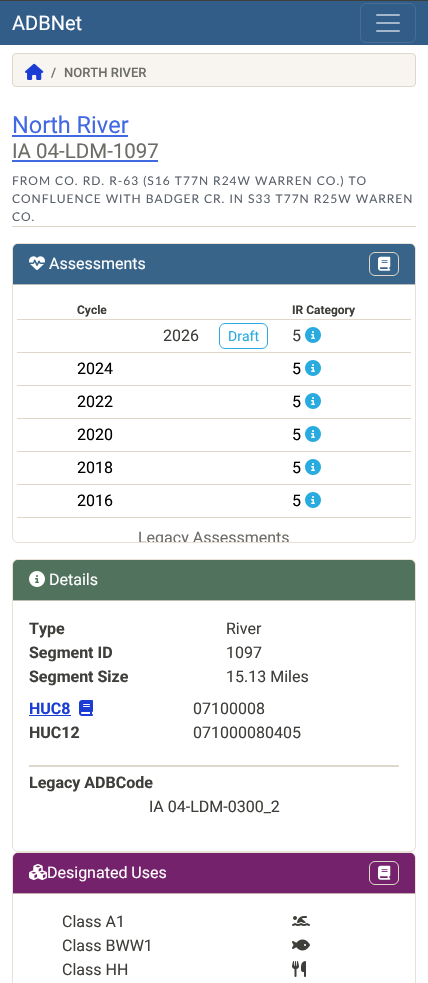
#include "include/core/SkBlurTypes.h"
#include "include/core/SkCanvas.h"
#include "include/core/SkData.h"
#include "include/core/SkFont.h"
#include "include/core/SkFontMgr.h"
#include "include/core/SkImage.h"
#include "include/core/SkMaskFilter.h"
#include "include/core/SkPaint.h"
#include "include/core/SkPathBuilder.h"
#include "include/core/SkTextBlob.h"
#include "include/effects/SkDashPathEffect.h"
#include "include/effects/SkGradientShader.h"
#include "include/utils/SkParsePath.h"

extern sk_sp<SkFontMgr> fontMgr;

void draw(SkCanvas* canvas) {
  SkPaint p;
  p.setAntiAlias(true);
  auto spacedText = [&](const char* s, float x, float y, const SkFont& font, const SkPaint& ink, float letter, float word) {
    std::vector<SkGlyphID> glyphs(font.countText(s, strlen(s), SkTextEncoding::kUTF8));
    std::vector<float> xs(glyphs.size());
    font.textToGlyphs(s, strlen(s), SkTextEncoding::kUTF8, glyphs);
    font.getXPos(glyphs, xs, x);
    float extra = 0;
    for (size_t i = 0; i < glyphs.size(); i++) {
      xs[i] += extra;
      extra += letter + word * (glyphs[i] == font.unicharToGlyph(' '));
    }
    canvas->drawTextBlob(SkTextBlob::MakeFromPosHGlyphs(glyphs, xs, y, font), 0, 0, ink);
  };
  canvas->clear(SK_ColorWHITE);
  p.setColor(SkColorSetRGB(50, 93, 136));
  canvas->drawRect(SkRect::MakeLTRB(0, 1, 428, 45), p);
  p.setColor(SkColorSetRGB(62, 63, 58));
  canvas->drawRect(SkRect::MakeLTRB(0, 0, 428, 1), p);
  p.setStyle(SkPaint::kStroke_Style);
  p.setStrokeWidth(1);
  p.setColor(SkColorSetRGB(71, 109, 148));
  canvas->drawRoundRect(SkRect::MakeLTRB(360.5f, 3.5f, 415.5f, 42.5f), 5.5f, 5.5f, p);
  canvas->drawImageRect(SkImages::DeferredFromEncodedData(SkData::MakeFromFileName("images/1.png")), SkRect::MakeLTRB(376, 14, 400, 32), SkSamplingOptions());
  p.setStyle(SkPaint::kFill_Style);
  p.setColor(SkColorSetRGB(248, 245, 240));
  canvas->drawRoundRect(SkRect::MakeLTRB(12.5f, 53.5f, 415.5f, 86.5f), 3.5f, 3.5f, p);
  p.setStyle(SkPaint::kStroke_Style);
  p.setColor(SkColorSetRGB(223, 215, 202));
  canvas->drawRoundRect(SkRect::MakeLTRB(12.5f, 53.5f, 415.5f, 86.5f), 3.5f, 3.5f, p);
  canvas->drawImageRect(SkImages::DeferredFromEncodedData(SkData::MakeFromFileName("images/2.png")), SkRect::MakeLTRB(25, 63, 44, 80), SkSamplingOptions());
  p.setStyle(SkPaint::kFill_Style);
  canvas->drawRect(SkRect::MakeLTRB(12, 226, 416, 227), p);
  p.setColor(SkColorSetRGB(65, 105, 225));
  canvas->drawRect(SkRect::MakeLTRB(12, 135, 128, 137), p);
  canvas->drawRect(SkRect::MakeLTRB(12, 160, 158, 162), p);
  p.setStyle(SkPaint::kStroke_Style);
  p.setColor(SkColorSetRGB(231, 225, 215));
  canvas->drawRoundRect(SkRect::MakeLTRB(12.5f, 243.5f, 415.5f, 542.5f), 5.5f, 5.5f, p);
  p.setStyle(SkPaint::kFill_Style);
  p.setColor(SkColorSetRGB(56, 100, 138));
  canvas->drawPath(SkPathBuilder().moveTo(18, 244).lineTo(410, 244).cubicTo(413, 244, 415, 246, 415, 249).lineTo(415, 285).lineTo(13, 285).lineTo(13, 249).cubicTo(13, 246, 15, 244, 18, 244).close().detach(), p);
  p.setColor(SkColorSetRGB(181, 186, 186));
  canvas->drawRect(SkRect::MakeLTRB(13, 284, 415, 285), p);
  canvas->drawImageRect(SkImages::DeferredFromEncodedData(SkData::MakeFromFileName("images/3.png")), SkRect::MakeLTRB(29, 256, 45, 270), SkSamplingOptions());
  p.setStyle(SkPaint::kStroke_Style);
  p.setColor(SkColorSetRGB(223, 215, 202));
  canvas->drawRoundRect(SkRect::MakeLTRB(369.5f, 252.5f, 398.5f, 275.5f), 5.5f, 5.5f, p);
  canvas->drawImageRect(SkImages::DeferredFromEncodedData(SkData::MakeFromFileName("images/4.png")), SkRect::MakeLTRB(378, 256, 391, 271), SkSamplingOptions());
  p.setStyle(SkPaint::kFill_Style);
  canvas->drawRect(SkRect::MakeLTRB(17, 319, 411, 320), p);
  canvas->drawRect(SkRect::MakeLTRB(17, 352, 411, 353), p);
  p.setStyle(SkPaint::kStroke_Style);
  p.setColor(SkColorSetRGB(41, 171, 224));
  canvas->drawRoundRect(SkRect::MakeLTRB(219.5f, 323.5f, 267.5f, 348.5f), 5.5f, 5.5f, p);
  canvas->drawImageRect(SkImages::DeferredFromEncodedData(SkData::MakeFromFileName("images/5.png")), SkRect::MakeLTRB(305, 327, 321, 343), SkSamplingOptions());
  p.setStyle(SkPaint::kFill_Style);
  p.setColor(SkColorSetRGB(223, 215, 202));
  canvas->drawRect(SkRect::MakeLTRB(17, 385, 411, 386), p);
  canvas->drawImageRect(SkImages::DeferredFromEncodedData(SkData::MakeFromFileName("images/5.png")), SkRect::MakeLTRB(305, 360, 321, 376), SkSamplingOptions());
  canvas->drawRect(SkRect::MakeLTRB(17, 418, 411, 419), p);
  canvas->drawImageRect(SkImages::DeferredFromEncodedData(SkData::MakeFromFileName("images/5.png")), SkRect::MakeLTRB(305, 393, 321, 409), SkSamplingOptions());
  canvas->drawRect(SkRect::MakeLTRB(17, 451, 411, 452), p);
  canvas->drawImageRect(SkImages::DeferredFromEncodedData(SkData::MakeFromFileName("images/5.png")), SkRect::MakeLTRB(305, 426, 321, 442), SkSamplingOptions());
  canvas->drawRect(SkRect::MakeLTRB(17, 484, 411, 485), p);
  canvas->drawImageRect(SkImages::DeferredFromEncodedData(SkData::MakeFromFileName("images/5.png")), SkRect::MakeLTRB(305, 459, 321, 475), SkSamplingOptions());
  canvas->drawRect(SkRect::MakeLTRB(17, 517, 411, 518), p);
  canvas->drawImageRect(SkImages::DeferredFromEncodedData(SkData::MakeFromFileName("images/5.png")), SkRect::MakeLTRB(305, 492, 321, 508), SkSamplingOptions());
  p.setStyle(SkPaint::kStroke_Style);
  p.setColor(SkColorSetRGB(231, 225, 215));
  canvas->drawRoundRect(SkRect::MakeLTRB(12.5f, 559.5f, 415.5f, 851.5f), 5.5f, 5.5f, p);
  p.setStyle(SkPaint::kFill_Style);
  p.setColor(SkColorSetRGB(81, 115, 93));
  canvas->drawPath(SkPathBuilder().moveTo(18, 560).lineTo(410, 560).cubicTo(413, 560, 415, 562, 415, 565).lineTo(415, 601).lineTo(13, 601).lineTo(13, 565).cubicTo(13, 562, 15, 560, 18, 560).close().detach(), p);
  p.setColor(SkColorSetRGB(188, 190, 175));
  canvas->drawRect(SkRect::MakeLTRB(13, 600, 415, 601), p);
  canvas->drawImageRect(SkImages::DeferredFromEncodedData(SkData::MakeFromFileName("images/6.png")), SkRect::MakeLTRB(29, 571, 45, 587), SkSamplingOptions());
  p.setColor(SkColorSetRGB(27, 61, 211));
  canvas->drawRect(SkRect::MakeLTRB(29, 715, 71, 716), p);
  canvas->drawImageRect(SkImages::DeferredFromEncodedData(SkData::MakeFromFileName("images/7.png")), SkRect::MakeLTRB(79, 700, 93, 716), SkSamplingOptions());
  p.setColor(SkColorSetRGB(223, 215, 202));
  canvas->drawRect(SkRect::MakeLTRB(29, 765, 399, 767), p);
  p.setStyle(SkPaint::kStroke_Style);
  p.setColor(SkColorSetRGB(231, 225, 215));
  canvas->drawRoundRect(SkRect::MakeLTRB(12.5f, 852.5f, 415.5f, 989.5f), 5.5f, 5.5f, p);
  p.setStyle(SkPaint::kFill_Style);
  p.setColor(SkColorSetRGB(116, 34, 108));
  canvas->drawPath(SkPathBuilder().moveTo(18, 853).lineTo(410, 853).cubicTo(413, 853, 415, 855, 415, 858).lineTo(415, 894).lineTo(13, 894).lineTo(13, 858).cubicTo(13, 855, 15, 853, 18, 853).close().detach(), p);
  p.setColor(SkColorSetRGB(196, 170, 179));
  canvas->drawRect(SkRect::MakeLTRB(13, 893, 415, 894), p);
  canvas->drawImageRect(SkImages::DeferredFromEncodedData(SkData::MakeFromFileName("images/8.png")), SkRect::MakeLTRB(29, 864, 47, 880), SkSamplingOptions());
  p.setStyle(SkPaint::kStroke_Style);
  p.setColor(SkColorSetRGB(223, 215, 202));
  canvas->drawRoundRect(SkRect::MakeLTRB(369.5f, 861.5f, 398.5f, 884.5f), 5.5f, 5.5f, p);
  canvas->drawImageRect(SkImages::DeferredFromEncodedData(SkData::MakeFromFileName("images/9.png")), SkRect::MakeLTRB(378, 865, 391, 880), SkSamplingOptions());
  canvas->drawImageRect(SkImages::DeferredFromEncodedData(SkData::MakeFromFileName("images/10.png")), SkRect::MakeLTRB(292, 916, 310, 926), SkSamplingOptions());
  canvas->drawImageRect(SkImages::DeferredFromEncodedData(SkData::MakeFromFileName("images/11.png")), SkRect::MakeLTRB(292, 939, 310, 951), SkSamplingOptions());
  canvas->drawImageRect(SkImages::DeferredFromEncodedData(SkData::MakeFromFileName("images/12.png")), SkRect::MakeLTRB(292, 961, 306, 977), SkSamplingOptions());
  SkFont font1(fontMgr->matchFamilyStyle("Roboto", SkFontStyle::Normal()), 20);
  font1.setSubpixel(true);
  p.setStyle(SkPaint::kFill_Style);
  p.setColor(SK_ColorWHITE);
  canvas->drawString("ADBNet", 12, 30, font1, p);
  SkFont font2(fontMgr->matchFamilyStyle("Roboto", SkFontStyle(500, SkFontStyle::kNormal_Width, SkFontStyle::kUpright_Slant)), 13);
  font2.setSubpixel(true);
  p.setColor(SkColorSetRGB(109, 109, 104));
  canvas->drawString("/", 51, 77, font2, p);
  canvas->drawString("NORTH RIVER", 64, 77, font2, p);
  SkFont font3(fontMgr->matchFamilyStyle("Roboto", SkFontStyle::Normal()), 23.5f);
  font3.setSubpixel(true);
  p.setColor(SkColorSetRGB(65, 105, 225));
  canvas->drawString("North River", 12, 133, font3, p);
  SkFont font4(fontMgr->matchFamilyStyle("Roboto", SkFontStyle::Normal()), 20.5f);
  font4.setSubpixel(true);
  p.setColor(SkColorSetRGB(109, 109, 104));
  canvas->drawString("IA 04-LDM-1097", 12, 158, font4, p);
  SkFont font5(fontMgr->matchFamilyStyle("Lato", SkFontStyle::Normal()), 12);
  font5.setSubpixel(true);
  p.setColor(SkColorSetRGB(91, 97, 107));
  spacedText("FROM CO. RD. R-63 (S16 T77N R24W WARREN CO.) TO", 12, 185, font5, p, 1, 0);
  spacedText("CONFLUENCE WITH BADGER CR. IN S33 T77N R25W WARREN", 12, 203, font5, p, 1, 0);
  spacedText("CO.", 12, 221, font5, p, 1, 0);
  SkFont font6(fontMgr->matchFamilyStyle("Roboto", SkFontStyle::Normal()), 16);
  font6.setSubpixel(true);
  p.setColor(SK_ColorWHITE);
  canvas->drawString("Assessments", 49, 269, font6, p);
  SkFont font7(fontMgr->matchFamilyStyle("Roboto", SkFontStyle::Bold()), 12);
  font7.setSubpixel(true);
  p.setColor(SkColorSetRGB(62, 63, 58));
  canvas->drawString("Cycle", 77, 314, font7, p);
  canvas->drawString("IR Category", 292, 314, font7, p);
  canvas->drawString("2026", 163, 341, font6, p);
  SkFont font8(fontMgr->matchFamilyStyle("Roboto", SkFontStyle::Normal()), 14);
  font8.setSubpixel(true);
  p.setColor(SkColorSetRGB(41, 171, 224));
  canvas->drawString("Draft", 228, 341, font8, p);
  p.setColor(SkColorSetRGB(62, 63, 58));
  canvas->drawString("5", 292, 341, font6, p);
  p.setColor(SK_ColorBLACK);
  canvas->drawString("2024", 77, 374, font6, p);
  canvas->drawString("5", 292, 374, font6, p);
  canvas->drawString("2022", 77, 407, font6, p);
  canvas->drawString("5", 292, 407, font6, p);
  canvas->drawString("2020", 77, 440, font6, p);
  canvas->drawString("5", 292, 440, font6, p);
  canvas->drawString("2018", 77, 473, font6, p);
  canvas->drawString("5", 292, 473, font6, p);
  canvas->drawString("2016", 77, 506, font6, p);
  canvas->drawString("5", 292, 506, font6, p);
  canvas->save();
  canvas->clipRect(SkRect::MakeLTRB(13, 285, 415, 542));
  p.setColor(SkColorSetRGB(109, 109, 104));
  canvas->drawString("Legacy Assessments", 138, 543, font6, p);
  canvas->restore();
  p.setColor(SK_ColorWHITE);
  canvas->drawString("Details", 49, 585, font6, p);
  SkFont font9(fontMgr->matchFamilyStyle("Roboto", SkFontStyle::Bold()), 16);
  font9.setSubpixel(true);
  p.setColor(SkColorSetRGB(62, 63, 58));
  canvas->drawString("Type", 29, 634, font9, p);
  canvas->drawString("River", 226, 634, font6, p);
  canvas->drawString("Segment ID", 29, 658, font9, p);
  canvas->drawString("1097", 226, 658, font6, p);
  canvas->drawString("Segment Size", 29, 682, font9, p);
  canvas->drawString("15.13 Miles", 226, 682, font6, p);
  p.setColor(SkColorSetRGB(27, 61, 211));
  canvas->drawString("HUC8", 29, 714, font9, p);
  p.setColor(SkColorSetRGB(62, 63, 58));
  canvas->drawString("07100008", 193, 714, font6, p);
  canvas->drawString("HUC12", 29, 738, font9, p);
  canvas->drawString("071000080405", 193, 738, font6, p);
  canvas->drawString("Legacy ADBCode", 29, 788, font9, p);
  canvas->drawString("IA 04-LDM-0300_2", 149, 812, font6, p);
  p.setColor(SK_ColorWHITE);
  canvas->drawString("Designated Uses", 47, 878, font6, p);
  p.setColor(SkColorSetRGB(62, 63, 58));
  canvas->drawString("Class A1", 62, 927, font6, p);
  canvas->drawString("Class BWW1", 62, 951, font6, p);
  canvas->drawString("Class HH", 62, 975, font6, p);
}
